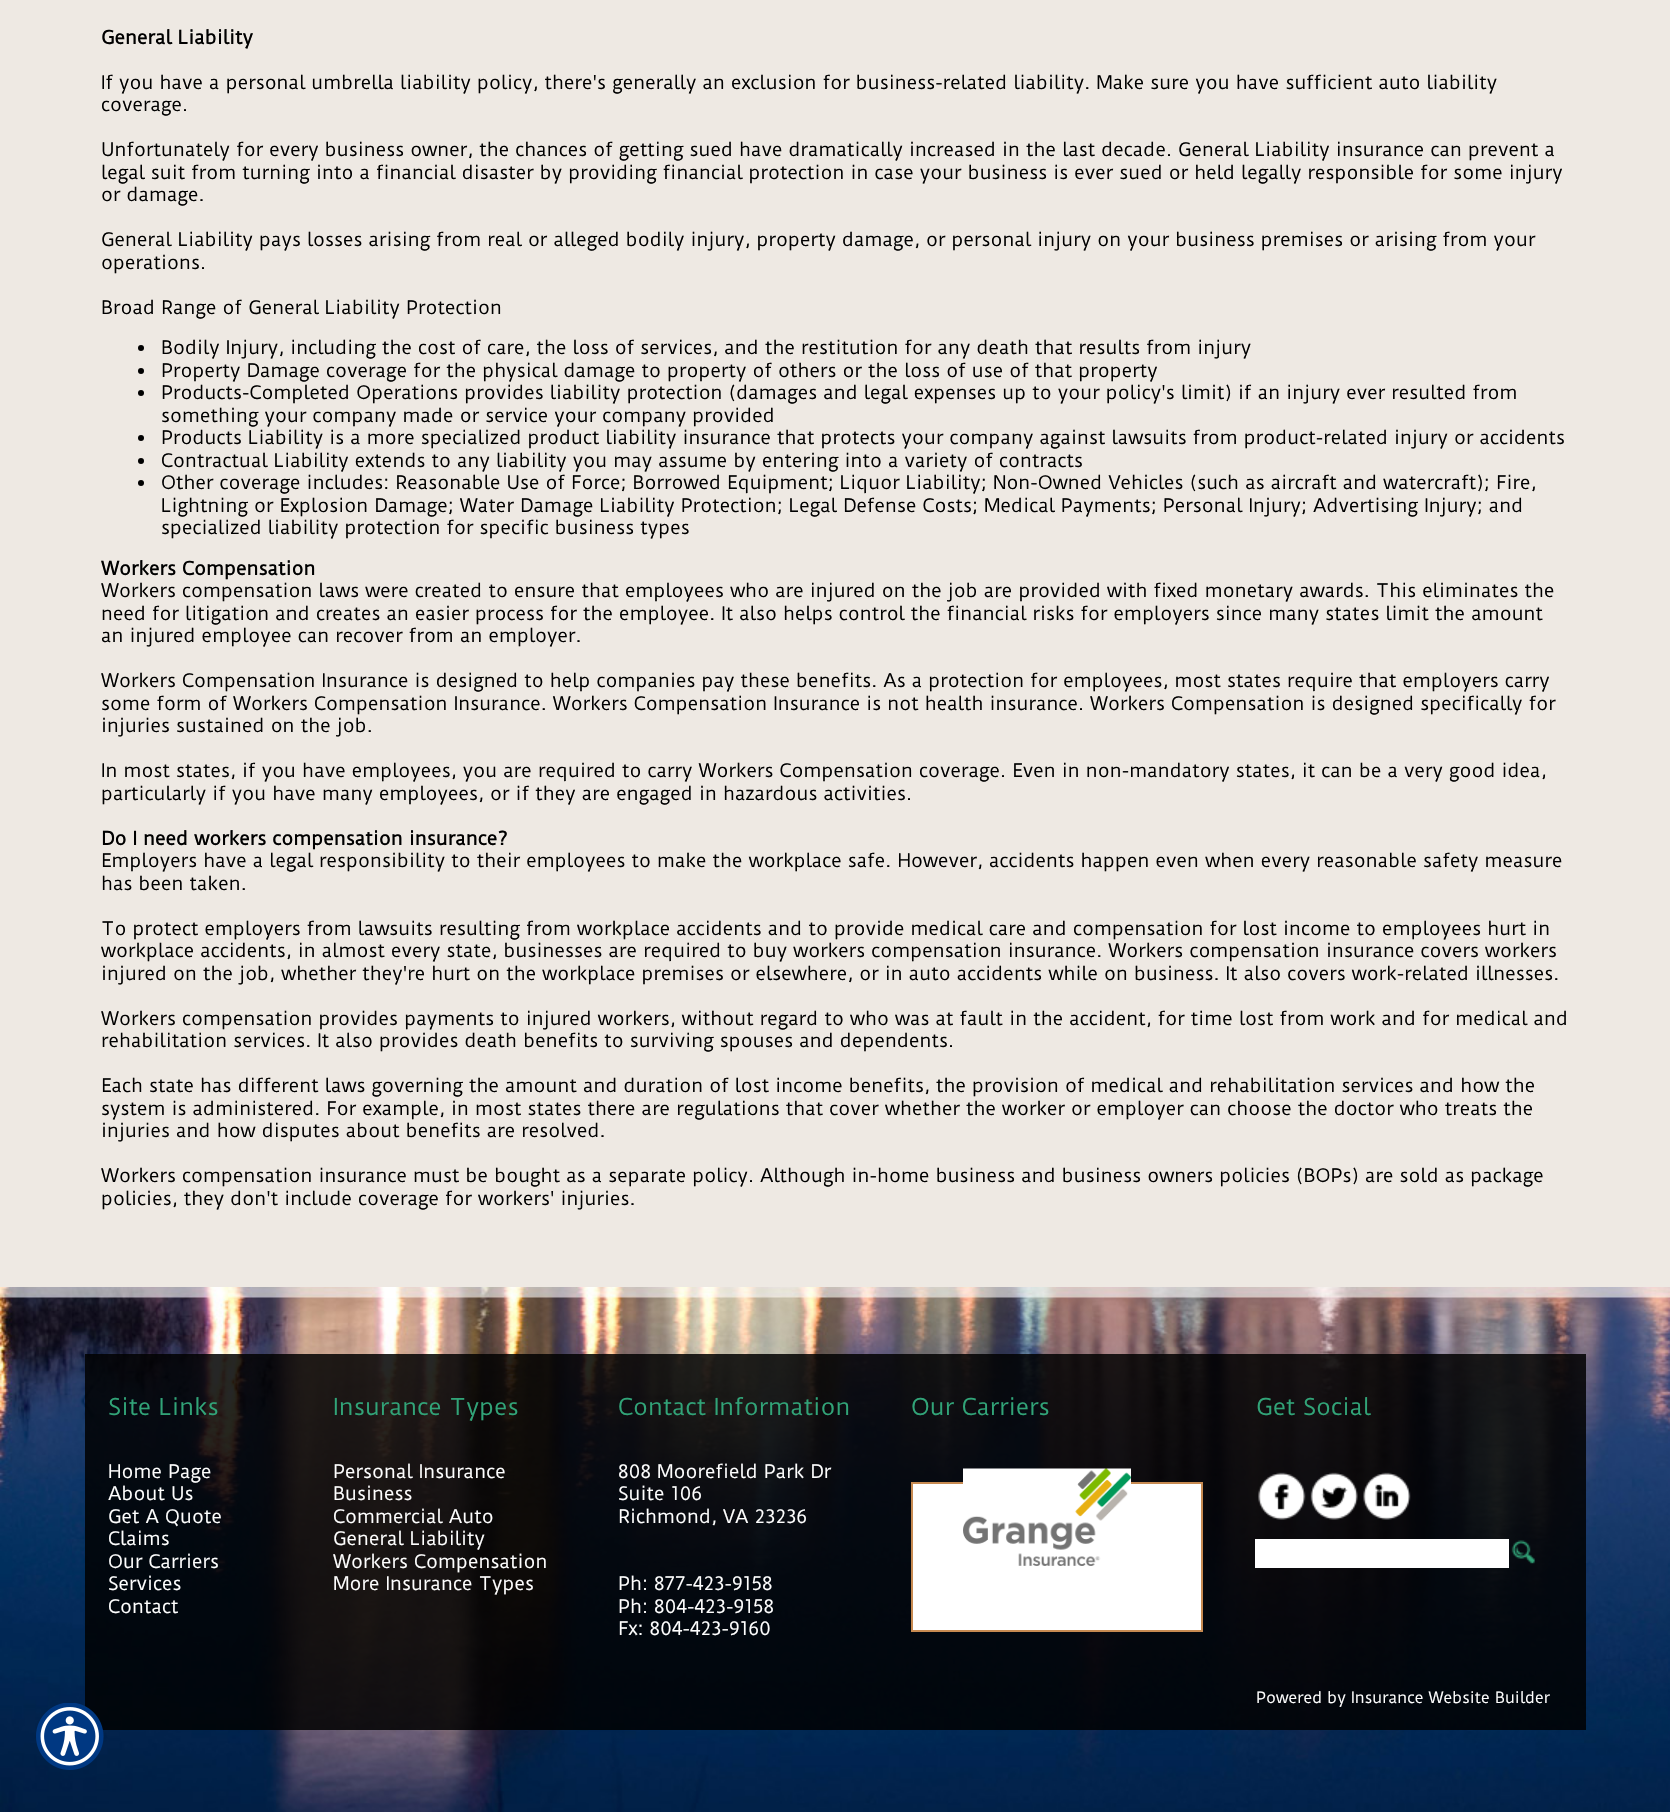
#include "include/core/SkBlurTypes.h"
#include "include/core/SkCanvas.h"
#include "include/core/SkData.h"
#include "include/core/SkFont.h"
#include "include/core/SkFontMgr.h"
#include "include/core/SkImage.h"
#include "include/core/SkMaskFilter.h"
#include "include/core/SkPaint.h"
#include "include/core/SkPathBuilder.h"
#include "include/core/SkTextBlob.h"
#include "include/effects/SkDashPathEffect.h"
#include "include/effects/SkGradientShader.h"
#include "include/utils/SkParsePath.h"

extern sk_sp<SkFontMgr> fontMgr;

void draw(SkCanvas* canvas) {
  SkPaint p;
  p.setAntiAlias(true);
  canvas->clear(SkColorSetRGB(238, 233, 227));
  p.setColor(SK_ColorBLACK);
  canvas->drawCircle(141, 348, 3, p);
  canvas->drawCircle(141, 371, 3, p);
  canvas->drawCircle(141, 393, 3, p);
  canvas->drawCircle(141, 438, 3, p);
  canvas->drawCircle(141, 461, 3, p);
  canvas->drawCircle(141, 483, 3, p);
  canvas->drawImageRect(SkImages::DeferredFromEncodedData(SkData::MakeFromFileName("images/1.png")), SkRect::MakeLTRB(0, 1287, 1670, 1812), SkSamplingOptions());
  p.setColor(SkColorSetARGB(217, 0, 0, 0));
  canvas->drawRect(SkRect::MakeLTRB(85, 1354, 1586, 1730), p);
  p.setColor(SK_ColorWHITE);
  canvas->drawRect(SkRect::MakeLTRB(912, 1483, 1202, 1631), p);
  p.setStyle(SkPaint::kStroke_Style);
  p.setStrokeWidth(2);
  p.setColor(SkColorSetRGB(199, 138, 81));
  canvas->drawRect(SkRect::MakeLTRB(912, 1483, 1202, 1631), p);
  canvas->drawImageRect(SkImages::DeferredFromEncodedData(SkData::MakeFromFileName("images/2.png")), SkRect::MakeLTRB(963, 1468, 1131, 1566), SkSamplingOptions());
  canvas->drawImageRect(SkImages::DeferredFromEncodedData(SkData::MakeFromFileName("images/3.png")), SkRect::MakeLTRB(1258, 1472, 1306, 1520), SkSamplingOptions());
  canvas->drawImageRect(SkImages::DeferredFromEncodedData(SkData::MakeFromFileName("images/4.png")), SkRect::MakeLTRB(1310, 1472, 1358, 1520), SkSamplingOptions());
  canvas->drawImageRect(SkImages::DeferredFromEncodedData(SkData::MakeFromFileName("images/5.png")), SkRect::MakeLTRB(1363, 1472, 1411, 1520), SkSamplingOptions());
  p.setStyle(SkPaint::kFill_Style);
  p.setColor(SK_ColorWHITE);
  canvas->drawRect(SkRect::MakeLTRB(1255, 1539, 1509, 1568), p);
  canvas->drawImageRect(SkImages::DeferredFromEncodedData(SkData::MakeFromFileName("images/6.png")), SkRect::MakeLTRB(1511, 1540, 1535, 1564), SkSamplingOptions());
  canvas->drawImageRect(SkImages::DeferredFromEncodedData(SkData::MakeFromFileName("images/7.png")), SkRect::MakeLTRB(36, 1703, 104, 1770), SkSamplingOptions());
  SkFont font1(fontMgr->matchFamilyStyle("Duru Sans", SkFontStyle::Bold()), 18);
  font1.setSubpixel(true);
  p.setColor(SK_ColorBLACK);
  canvas->drawString("General Liability", 101, 44, font1, p);
  SkFont font2(fontMgr->matchFamilyStyle("Duru Sans", SkFontStyle::Normal()), 18);
  font2.setSubpixel(true);
  canvas->drawString("If you have a personal umbrella liability policy, there's generally an exclusion for business-related liability. Make sure you have sufficient auto liability", 101, 89, font2, p);
  canvas->drawString("coverage.", 101, 111, font2, p);
  canvas->drawString("Unfortunately for every business owner, the chances of getting sued have dramatically increased in the last decade. General Liability insurance can prevent a", 101, 156, font2, p);
  canvas->drawString("legal suit from turning into a financial disaster by providing financial protection in case your business is ever sued or held legally responsible for some injury", 101, 179, font2, p);
  canvas->drawString("or damage.", 101, 201, font2, p);
  canvas->drawString("General Liability pays losses arising from real or alleged bodily injury, property damage, or personal injury on your business premises or arising from your", 101, 246, font2, p);
  canvas->drawString("operations.", 101, 269, font2, p);
  canvas->drawString("Broad Range of General Liability Protection", 101, 314, font2, p);
  canvas->drawString("Bodily Injury, including the cost of care, the loss of services, and the restitution for any death that results from injury", 161, 354, font2, p);
  canvas->drawString("Property Damage coverage for the physical damage to property of others or the loss of use of that property", 161, 377, font2, p);
  canvas->drawString("Products-Completed Operations provides liability protection (damages and legal expenses up to your policy's limit) if an injury ever resulted from", 161, 399, font2, p);
  canvas->drawString("something your company made or service your company provided", 161, 422, font2, p);
  canvas->drawString("Products Liability is a more specialized product liability insurance that protects your company against lawsuits from product-related injury or accidents", 161, 444, font2, p);
  canvas->drawString("Contractual Liability extends to any liability you may assume by entering into a variety of contracts", 161, 467, font2, p);
  canvas->drawString("Other coverage includes: Reasonable Use of Force; Borrowed Equipment; Liquor Liability; Non-Owned Vehicles (such as aircraft and watercraft); Fire,", 161, 489, font2, p);
  canvas->drawString("Lightning or Explosion Damage; Water Damage Liability Protection; Legal Defense Costs; Medical Payments; Personal Injury; Advertising Injury; and", 161, 512, font2, p);
  canvas->drawString("specialized liability protection for specific business types", 161, 534, font2, p);
  canvas->drawString("Workers Compensation", 101, 575, font1, p);
  canvas->drawString("Workers compensation laws were created to ensure that employees who are injured on the job are provided with fixed monetary awards. This eliminates the", 101, 597, font2, p);
  canvas->drawString("need for litigation and creates an easier process for the employee. It also helps control the financial risks for employers since many states limit the amount", 101, 620, font2, p);
  canvas->drawString("an injured employee can recover from an employer.", 101, 642, font2, p);
  canvas->drawString("Workers Compensation Insurance is designed to help companies pay these benefits. As a protection for employees, most states require that employers carry", 101, 687, font2, p);
  canvas->drawString("some form of Workers Compensation Insurance. Workers Compensation Insurance is not health insurance. Workers Compensation is designed specifically for", 101, 710, font2, p);
  canvas->drawString("injuries sustained on the job.", 101, 732, font2, p);
  canvas->drawString("In most states, if you have employees, you are required to carry Workers Compensation coverage. Even in non-mandatory states, it can be a very good idea,", 101, 777, font2, p);
  canvas->drawString("particularly if you have many employees, or if they are engaged in hazardous activities.", 101, 800, font2, p);
  canvas->drawString("Do I need workers compensation insurance?", 101, 845, font1, p);
  canvas->drawString("Employers have a legal responsibility to their employees to make the workplace safe. However, accidents happen even when every reasonable safety measure", 101, 867, font2, p);
  canvas->drawString("has been taken.", 101, 890, font2, p);
  canvas->drawString("To protect employers from lawsuits resulting from workplace accidents and to provide medical care and compensation for lost income to employees hurt in", 101, 935, font2, p);
  canvas->drawString("workplace accidents, in almost every state, businesses are required to buy workers compensation insurance. Workers compensation insurance covers workers", 101, 957, font2, p);
  canvas->drawString("injured on the job, whether they're hurt on the workplace premises or elsewhere, or in auto accidents while on business. It also covers work-related illnesses.", 101, 980, font2, p);
  canvas->drawString("Workers compensation provides payments to injured workers, without regard to who was at fault in the accident, for time lost from work and for medical and", 101, 1025, font2, p);
  canvas->drawString("rehabilitation services. It also provides death benefits to surviving spouses and dependents.", 101, 1047, font2, p);
  canvas->drawString("Each state has different laws governing the amount and duration of lost income benefits, the provision of medical and rehabilitation services and how the", 101, 1092, font2, p);
  canvas->drawString("system is administered. For example, in most states there are regulations that cover whether the worker or employer can choose the doctor who treats the", 101, 1115, font2, p);
  canvas->drawString("injuries and how disputes about benefits are resolved.", 101, 1137, font2, p);
  canvas->drawString("Workers compensation insurance must be bought as a separate policy. Although in-home business and business owners policies (BOPs) are sold as package", 101, 1182, font2, p);
  canvas->drawString("policies, they don't include coverage for workers' injuries.", 101, 1205, font2, p);
  SkFont font3(fontMgr->matchFamilyStyle("Duru Sans", SkFontStyle::Normal()), 22.5f);
  font3.setSubpixel(true);
  p.setColor(SkColorSetRGB(49, 164, 120));
  canvas->drawString("Site Links", 108, 1415, font3, p);
  canvas->drawString("Insurance Types", 333, 1415, font3, p);
  canvas->drawString("Contact Information", 618, 1415, font3, p);
  canvas->drawString("Our Carriers", 911, 1415, font3, p);
  canvas->drawString("Get Social", 1256, 1415, font3, p);
  p.setColor(SK_ColorWHITE);
  canvas->drawString("Home Page", 108, 1478, font2, p);
  canvas->drawString("About Us", 108, 1500, font2, p);
  canvas->drawString("Get A Quote", 108, 1523, font2, p);
  canvas->drawString("Claims", 108, 1545, font2, p);
  canvas->drawString("Our Carriers", 108, 1568, font2, p);
  canvas->drawString("Services", 108, 1590, font2, p);
  canvas->drawString("Contact", 108, 1613, font2, p);
  canvas->drawString("Personal Insurance", 333, 1478, font2, p);
  canvas->drawString("Business", 333, 1500, font2, p);
  canvas->drawString("Commercial Auto", 333, 1523, font2, p);
  canvas->drawString("General Liability", 333, 1545, font2, p);
  canvas->drawString("Workers Compensation", 333, 1568, font2, p);
  canvas->drawString("More Insurance Types", 333, 1590, font2, p);
  canvas->drawString("808 Moorefield Park Dr", 618, 1478, font2, p);
  canvas->drawString("Suite 106", 618, 1500, font2, p);
  canvas->drawString("Richmond, VA 23236", 618, 1523, font2, p);
  canvas->drawString("Ph: 877-423-9158", 618, 1590, font2, p);
  canvas->drawString("Ph: 804-423-9158", 618, 1613, font2, p);
  canvas->drawString("Fx: 804-423-9160", 618, 1635, font2, p);
  SkFont font4(fontMgr->matchFamilyStyle("Duru Sans", SkFontStyle::Normal()), 15);
  font4.setSubpixel(true);
  canvas->drawString("Powered by Insurance Website Builder", 1256, 1703, font4, p);
}
